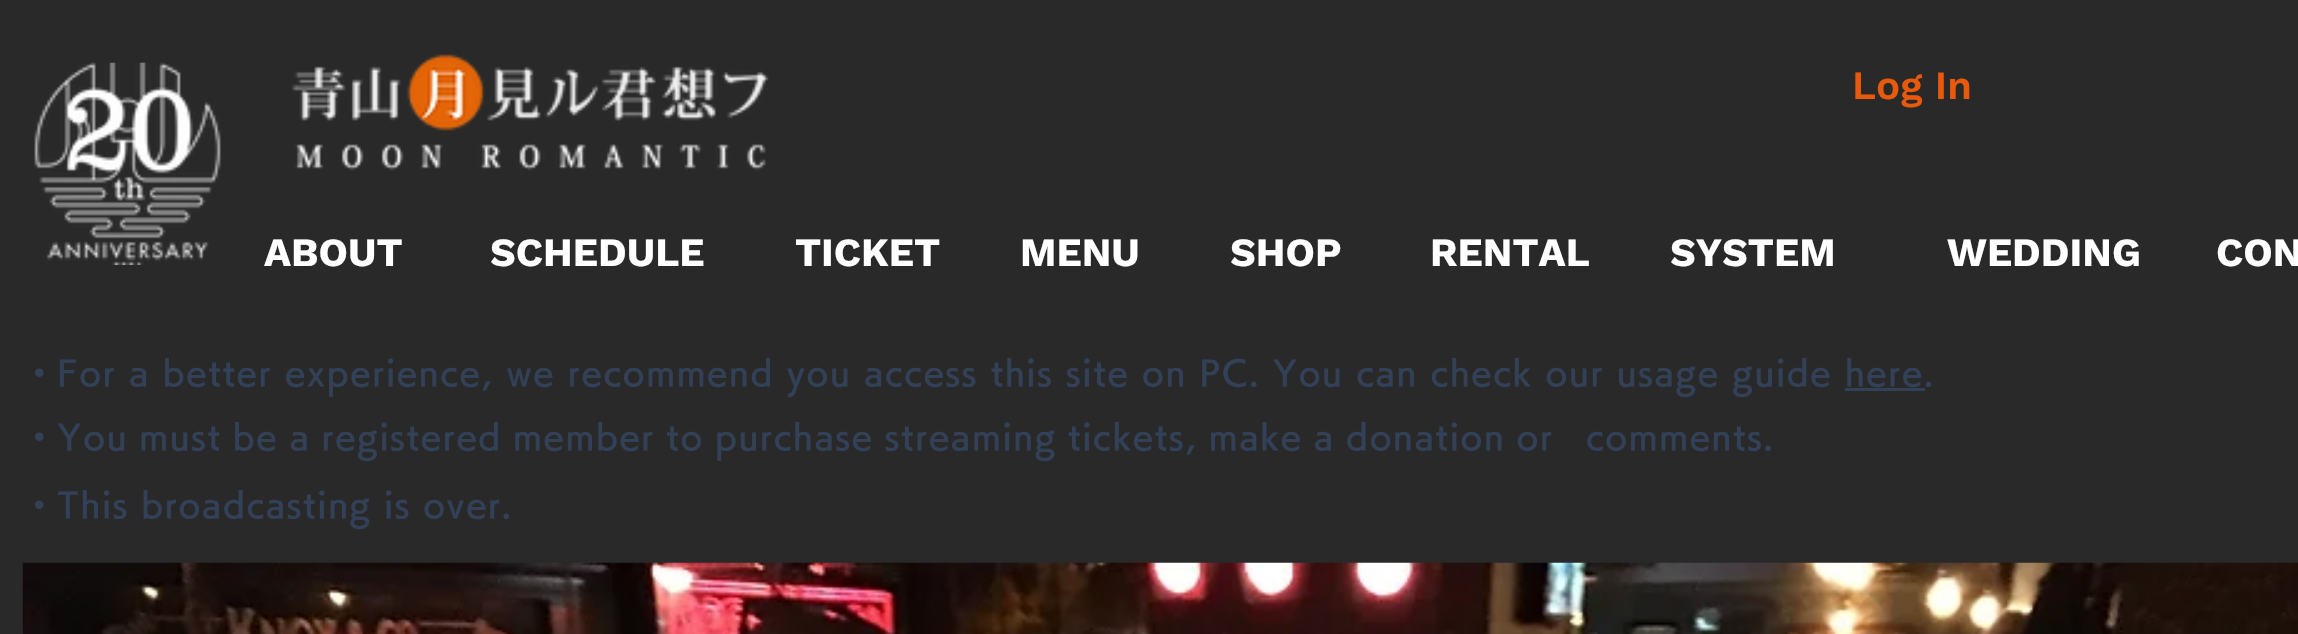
#include "include/core/SkBlurTypes.h"
#include "include/core/SkCanvas.h"
#include "include/core/SkData.h"
#include "include/core/SkFont.h"
#include "include/core/SkFontMgr.h"
#include "include/core/SkImage.h"
#include "include/core/SkMaskFilter.h"
#include "include/core/SkPaint.h"
#include "include/core/SkPathBuilder.h"
#include "include/core/SkTextBlob.h"
#include "include/effects/SkDashPathEffect.h"
#include "include/effects/SkGradientShader.h"
#include "include/utils/SkParsePath.h"

extern sk_sp<SkFontMgr> fontMgr;

void draw(SkCanvas* canvas) {
  SkPaint p;
  p.setAntiAlias(true);
  auto spacedText = [&](const char* s, float x, float y, const SkFont& font, const SkPaint& ink, float letter, float word) {
    std::vector<SkGlyphID> glyphs(font.countText(s, strlen(s), SkTextEncoding::kUTF8));
    std::vector<float> xs(glyphs.size());
    font.textToGlyphs(s, strlen(s), SkTextEncoding::kUTF8, glyphs);
    font.getXPos(glyphs, xs, x);
    float extra = 0;
    for (size_t i = 0; i < glyphs.size(); i++) {
      xs[i] += extra;
      extra += letter + word * (glyphs[i] == font.unicharToGlyph(' '));
    }
    canvas->drawTextBlob(SkTextBlob::MakeFromPosHGlyphs(glyphs, xs, y, font), 0, 0, ink);
  };
  canvas->clear(SkColorSetRGB(41, 41, 41));
  canvas->drawImageRect(SkImages::DeferredFromEncodedData(SkData::MakeFromFileName("images/1.png")), SkRect::MakeLTRB(34, 62, 221, 265), SkSamplingOptions());
  canvas->drawImageRect(SkImages::DeferredFromEncodedData(SkData::MakeFromFileName("images/2.png")), SkRect::MakeLTRB(292, 54, 769, 171), SkSamplingOptions());
  p.setColor(SkColorSetRGB(50, 65, 88));
  canvas->drawRect(SkRect::MakeLTRB(1845, 388, 1925, 391), p);
  canvas->drawImageRect(SkImages::DeferredFromEncodedData(SkData::MakeFromFileName("images/3.png")), SkRect::MakeLTRB(22, 562, 2298, 634), SkSamplingOptions());
  SkFont font1(fontMgr->matchFamilyStyle("Work Sans", SkFontStyle(600, SkFontStyle::kNormal_Width, SkFontStyle::kUpright_Slant)), 40);
  font1.setSubpixel(true);
  p.setColor(SkColorSetRGB(232, 89, 12));
  canvas->drawString("Log In", 1852, 99, font1, p);
  SkFont font2(fontMgr->matchFamilyStyle("Work Sans", SkFontStyle::Bold()), 40);
  font2.setSubpixel(true);
  p.setColor(SK_ColorWHITE);
  canvas->drawString("ABOUT", 264, 266, font2, p);
  canvas->drawString("SCHEDULE", 490, 266, font2, p);
  canvas->drawString("TICKET", 795, 266, font2, p);
  canvas->drawString("MENU", 1020, 266, font2, p);
  canvas->drawString("SHOP", 1230, 266, font2, p);
  canvas->drawString("RENTAL", 1430, 266, font2, p);
  canvas->drawString("SYSTEM", 1670, 266, font2, p);
  canvas->drawString("WEDDING", 1947, 266, font2, p);
  canvas->drawString("CON", 2216, 266, font2, p);
  SkFont font3(fontMgr->matchFamilyStyle("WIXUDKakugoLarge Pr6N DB", SkFontStyle(600, SkFontStyle::kNormal_Width, SkFontStyle::kUpright_Slant)), 32.5f);
  font3.setSubpixel(true);
  p.setColor(SkColorSetRGB(50, 65, 88));
  spacedText("・For a better experience, we recommend you access this site on PC. You can check our usage guide here.", 23, 385, font3, p, 1.62f, 0);
  spacedText("・You must be a registered member to purchase streaming tickets, make a donation or", 23, 449, font3, p, 1.62f, -1.5f);
  spacedText("comments.", 1586, 449, font3, p, 1.62f, -1.5f);
  spacedText("・This broadcasting is over.", 23, 517, font3, p, 1.62f, -0.5f);
}
